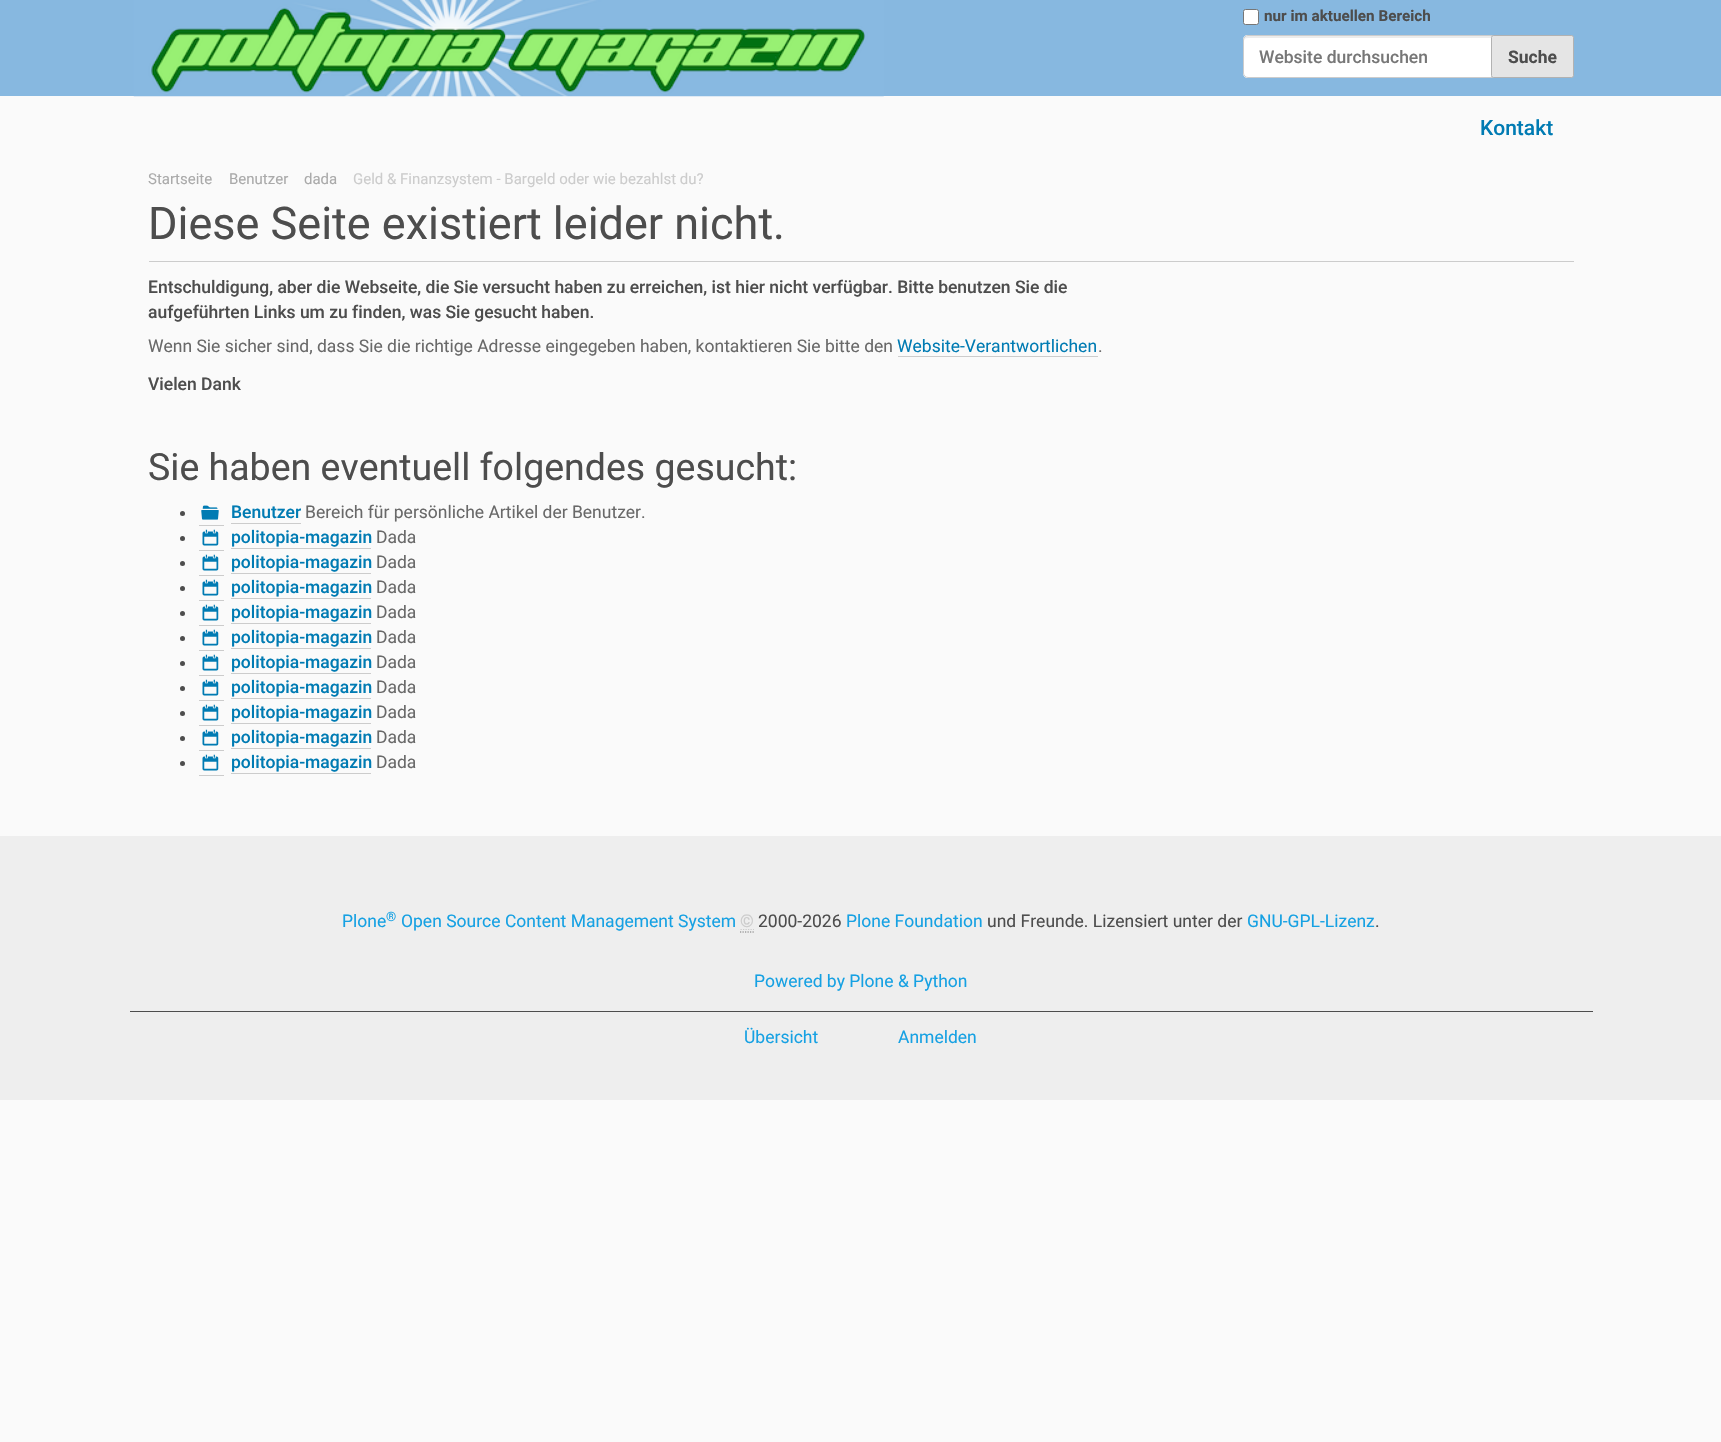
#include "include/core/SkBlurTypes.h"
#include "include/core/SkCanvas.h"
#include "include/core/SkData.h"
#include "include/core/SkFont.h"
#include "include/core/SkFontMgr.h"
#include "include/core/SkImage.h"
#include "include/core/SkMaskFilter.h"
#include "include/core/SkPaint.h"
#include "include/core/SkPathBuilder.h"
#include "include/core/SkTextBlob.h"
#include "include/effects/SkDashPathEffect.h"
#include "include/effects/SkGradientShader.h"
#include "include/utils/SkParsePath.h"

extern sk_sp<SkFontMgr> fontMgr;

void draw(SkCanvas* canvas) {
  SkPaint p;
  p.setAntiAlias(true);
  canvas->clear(SkColorSetRGB(250, 250, 250));
  p.setColor(SkColorSetRGB(135, 184, 224));
  canvas->drawRect(SkRect::MakeLTRB(0, 0, 1721, 96), p);
  canvas->drawImageRect(SkImages::DeferredFromEncodedData(SkData::MakeFromFileName("images/1.png")), SkRect::MakeLTRB(133, 0, 884, 97), SkSamplingOptions());
  p.setColor(SK_ColorWHITE);
  canvas->drawRoundRect(SkRect::MakeLTRB(1243.5f, 9.5f, 1258.5f, 24.5f), 2, 2, p);
  p.setStyle(SkPaint::kStroke_Style);
  p.setStrokeWidth(1);
  p.setColor(SkColorSetRGB(118, 118, 118));
  canvas->drawRoundRect(SkRect::MakeLTRB(1243.5f, 9.5f, 1258.5f, 24.5f), 2, 2, p);
  p.setStyle(SkPaint::kFill_Style);
  p.setColor(SK_ColorWHITE);
  canvas->drawPath(SkPathBuilder().moveTo(1248, 35).lineTo(1493, 35).lineTo(1493, 78).lineTo(1248, 78).cubicTo(1245, 78, 1243, 76, 1243, 73).lineTo(1243, 40).cubicTo(1243, 37, 1245, 35, 1248, 35).close().detach(), p);
  p.setColor(SkColorSetRGB(236, 236, 236));
  canvas->drawPath(SkPathBuilder().moveTo(1248, 38).lineTo(1491, 38).lineTo(1491, 36).lineTo(1248, 36).cubicTo(1246, 36, 1244, 38, 1244, 40).lineTo(1244, 41).cubicTo(1244, 39, 1245, 38, 1248, 38).close().detach(), p);
  p.setStyle(SkPaint::kStroke_Style);
  p.setColor(SkColorSetRGB(204, 204, 204));
  canvas->drawPath(SkPathBuilder().moveTo(1248, 35.5f).lineTo(1492.5f, 35.5f).lineTo(1492.5f, 77.5f).lineTo(1248, 77.5f).cubicTo(1245.5f, 77.5f, 1243.5f, 75.5f, 1243.5f, 73).lineTo(1243.5f, 40).cubicTo(1243.5f, 37.5f, 1245.5f, 35.5f, 1248, 35.5f).close().detach(), p);
  p.setStyle(SkPaint::kFill_Style);
  p.setColor(SkColorSetRGB(229, 229, 229));
  canvas->drawRoundRect(SkRect::MakeLTRB(1491.5f, 35.5f, 1573.5f, 77.5f), 2, 2, p);
  p.setStyle(SkPaint::kStroke_Style);
  p.setColor(SkColorSetRGB(178, 178, 178));
  canvas->drawRoundRect(SkRect::MakeLTRB(1491.5f, 35.5f, 1573.5f, 77.5f), 2, 2, p);
  p.setStyle(SkPaint::kFill_Style);
  p.setColor(SkColorSetRGB(204, 204, 204));
  canvas->drawRect(SkRect::MakeLTRB(149, 261, 1574, 262), p);
  canvas->drawRect(SkRect::MakeLTRB(898, 356, 1098, 357), p);
  p.setColor(SkColorSetRGB(77, 77, 77));
  canvas->drawCircle(182.5f, 513.5f, 2.5f, p);
  p.setColor(SkColorSetRGB(204, 204, 204));
  canvas->drawRect(SkRect::MakeLTRB(199, 525, 224, 526), p);
  canvas->drawRect(SkRect::MakeLTRB(231, 523, 301, 524), p);
  canvas->drawImageRect(SkImages::DeferredFromEncodedData(SkData::MakeFromFileName("images/2.png")), SkRect::MakeLTRB(201, 505, 219, 520), SkSamplingOptions());
  p.setColor(SkColorSetRGB(77, 77, 77));
  canvas->drawCircle(182.5f, 538.5f, 2.5f, p);
  p.setColor(SkColorSetRGB(204, 204, 204));
  canvas->drawRect(SkRect::MakeLTRB(199, 550, 224, 551), p);
  canvas->drawRect(SkRect::MakeLTRB(231, 548, 371, 549), p);
  canvas->drawImageRect(SkImages::DeferredFromEncodedData(SkData::MakeFromFileName("images/3.png")), SkRect::MakeLTRB(202, 529, 219, 546), SkSamplingOptions());
  p.setColor(SkColorSetRGB(77, 77, 77));
  canvas->drawCircle(182.5f, 563.5f, 2.5f, p);
  p.setColor(SkColorSetRGB(204, 204, 204));
  canvas->drawRect(SkRect::MakeLTRB(199, 575, 224, 576), p);
  canvas->drawRect(SkRect::MakeLTRB(231, 573, 371, 574), p);
  canvas->drawImageRect(SkImages::DeferredFromEncodedData(SkData::MakeFromFileName("images/3.png")), SkRect::MakeLTRB(202, 554, 219, 571), SkSamplingOptions());
  p.setColor(SkColorSetRGB(77, 77, 77));
  canvas->drawCircle(182.5f, 588.5f, 2.5f, p);
  p.setColor(SkColorSetRGB(204, 204, 204));
  canvas->drawRect(SkRect::MakeLTRB(199, 600, 224, 601), p);
  canvas->drawRect(SkRect::MakeLTRB(231, 598, 371, 599), p);
  canvas->drawImageRect(SkImages::DeferredFromEncodedData(SkData::MakeFromFileName("images/3.png")), SkRect::MakeLTRB(202, 579, 219, 596), SkSamplingOptions());
  p.setColor(SkColorSetRGB(77, 77, 77));
  canvas->drawCircle(182.5f, 613.5f, 2.5f, p);
  p.setColor(SkColorSetRGB(204, 204, 204));
  canvas->drawRect(SkRect::MakeLTRB(199, 625, 224, 626), p);
  canvas->drawRect(SkRect::MakeLTRB(231, 623, 371, 624), p);
  canvas->drawImageRect(SkImages::DeferredFromEncodedData(SkData::MakeFromFileName("images/3.png")), SkRect::MakeLTRB(202, 604, 219, 621), SkSamplingOptions());
  p.setColor(SkColorSetRGB(77, 77, 77));
  canvas->drawCircle(182.5f, 638.5f, 2.5f, p);
  p.setColor(SkColorSetRGB(204, 204, 204));
  canvas->drawRect(SkRect::MakeLTRB(199, 650, 224, 651), p);
  canvas->drawRect(SkRect::MakeLTRB(231, 648, 371, 649), p);
  canvas->drawImageRect(SkImages::DeferredFromEncodedData(SkData::MakeFromFileName("images/3.png")), SkRect::MakeLTRB(202, 629, 219, 646), SkSamplingOptions());
  p.setColor(SkColorSetRGB(77, 77, 77));
  canvas->drawCircle(182.5f, 663.5f, 2.5f, p);
  p.setColor(SkColorSetRGB(204, 204, 204));
  canvas->drawRect(SkRect::MakeLTRB(199, 675, 224, 676), p);
  canvas->drawRect(SkRect::MakeLTRB(231, 673, 371, 674), p);
  canvas->drawImageRect(SkImages::DeferredFromEncodedData(SkData::MakeFromFileName("images/3.png")), SkRect::MakeLTRB(202, 654, 219, 671), SkSamplingOptions());
  p.setColor(SkColorSetRGB(77, 77, 77));
  canvas->drawCircle(182.5f, 688.5f, 2.5f, p);
  p.setColor(SkColorSetRGB(204, 204, 204));
  canvas->drawRect(SkRect::MakeLTRB(199, 700, 224, 701), p);
  canvas->drawRect(SkRect::MakeLTRB(231, 698, 371, 699), p);
  canvas->drawImageRect(SkImages::DeferredFromEncodedData(SkData::MakeFromFileName("images/3.png")), SkRect::MakeLTRB(202, 679, 219, 696), SkSamplingOptions());
  p.setColor(SkColorSetRGB(77, 77, 77));
  canvas->drawCircle(182.5f, 713.5f, 2.5f, p);
  p.setColor(SkColorSetRGB(204, 204, 204));
  canvas->drawRect(SkRect::MakeLTRB(199, 725, 224, 726), p);
  canvas->drawRect(SkRect::MakeLTRB(231, 723, 371, 724), p);
  canvas->drawImageRect(SkImages::DeferredFromEncodedData(SkData::MakeFromFileName("images/3.png")), SkRect::MakeLTRB(202, 704, 219, 721), SkSamplingOptions());
  p.setColor(SkColorSetRGB(77, 77, 77));
  canvas->drawCircle(182.5f, 738.5f, 2.5f, p);
  p.setColor(SkColorSetRGB(204, 204, 204));
  canvas->drawRect(SkRect::MakeLTRB(199, 750, 224, 751), p);
  canvas->drawRect(SkRect::MakeLTRB(231, 748, 371, 749), p);
  canvas->drawImageRect(SkImages::DeferredFromEncodedData(SkData::MakeFromFileName("images/3.png")), SkRect::MakeLTRB(202, 729, 219, 746), SkSamplingOptions());
  p.setColor(SkColorSetRGB(77, 77, 77));
  canvas->drawCircle(182.5f, 763.5f, 2.5f, p);
  p.setColor(SkColorSetRGB(204, 204, 204));
  canvas->drawRect(SkRect::MakeLTRB(199, 775, 224, 776), p);
  canvas->drawRect(SkRect::MakeLTRB(231, 773, 371, 774), p);
  canvas->drawImageRect(SkImages::DeferredFromEncodedData(SkData::MakeFromFileName("images/3.png")), SkRect::MakeLTRB(202, 754, 219, 771), SkSamplingOptions());
  p.setColor(SkColorSetRGB(238, 238, 238));
  canvas->drawRect(SkRect::MakeLTRB(0, 836, 1721, 1100), p);
  p.setStyle(SkPaint::kStroke_Style);
  p.setStrokeWidth(1.2f);
  p.setColor(SkColorSetRGB(119, 119, 119));
  p.setPathEffect(SkDashPathEffect::Make({{1.25f, 1.25f}}, 0));
  canvas->drawPath(SkPathBuilder().moveTo(740, 932).lineTo(754, 932).detach(), p);
  p.setPathEffect(nullptr);
  p.setColor(SkColorSetRGB(204, 204, 204));
  p.setPathEffect(SkDashPathEffect::Make({{1.25f, 1.25f}}, 0));
  canvas->drawPath(SkPathBuilder().moveTo(740.5f, 929.5f).lineTo(754, 929.5f).detach(), p);
  p.setPathEffect(nullptr);
  p.setStyle(SkPaint::kFill_Style);
  p.setColor(SkColorSetRGB(77, 77, 77));
  canvas->drawRect(SkRect::MakeLTRB(130, 1011, 1593, 1012), p);
  SkFont font1(fontMgr->matchFamilyStyle("Roboto", SkFontStyle::Bold()), 15.25f);
  font1.setSubpixel(true);
  canvas->drawString("nur im aktuellen Bereich", 1264, 21, font1, p);
  SkFont font2(fontMgr->matchFamilyStyle("Roboto", SkFontStyle(500, SkFontStyle::kNormal_Width, SkFontStyle::kUpright_Slant)), 17.5f);
  font2.setSubpixel(true);
  p.setColor(SkColorSetRGB(119, 119, 119));
  canvas->drawString("Website durchsuchen", 1259, 63, font2, p);
  SkFont font3(fontMgr->matchFamilyStyle("Roboto", SkFontStyle::Bold()), 17.5f);
  font3.setSubpixel(true);
  p.setColor(SkColorSetRGB(77, 77, 77));
  canvas->drawString("Suche", 1508, 63, font3, p);
  SkFont font4(fontMgr->matchFamilyStyle("Roboto", SkFontStyle(500, SkFontStyle::kNormal_Width, SkFontStyle::kUpright_Slant)), 21);
  font4.setSubpixel(true);
  p.setColor(SkColorSetRGB(0, 123, 179));
  canvas->drawString("Kontakt", 1480, 135, font4, p);
  SkFont font5(fontMgr->matchFamilyStyle("Roboto", SkFontStyle::Normal()), 15);
  font5.setSubpixel(true);
  p.setColor(SkColorSetRGB(170, 170, 170));
  canvas->drawString("Startseite", 148, 184, font5, p);
  canvas->drawString("Benutzer", 229, 184, font5, p);
  canvas->drawString("dada", 304, 184, font5, p);
  p.setColor(SkColorSetRGB(204, 204, 204));
  canvas->drawString("Geld & Finanzsystem - Bargeld oder wie bezahlst du?", 353, 184, font5, p);
  SkFont font6(fontMgr->matchFamilyStyle("Roboto", SkFontStyle::Normal()), 45);
  font6.setSubpixel(true);
  p.setColor(SkColorSetRGB(77, 77, 77));
  canvas->drawString("Diese Seite existiert leider nicht.", 148, 239, font6, p);
  canvas->drawString("Entschuldigung, aber die Webseite, die Sie versucht haben zu erreichen, ist hier nicht verfügbar. Bitte benutzen Sie die", 148, 293, font2, p);
  canvas->drawString("aufgeführten Links um zu finden, was Sie gesucht haben.", 148, 318, font2, p);
  SkFont font7(fontMgr->matchFamilyStyle("Roboto", SkFontStyle::Normal()), 17.5f);
  font7.setSubpixel(true);
  p.setColor(SkColorSetRGB(105, 105, 105));
  canvas->drawString("Wenn Sie sicher sind, dass Sie die richtige Adresse eingegeben haben, kontaktieren Sie bitte den", 148, 352, font7, p);
  p.setColor(SkColorSetRGB(0, 123, 179));
  canvas->drawString("Website-Verantwortlichen", 897, 352, font7, p);
  p.setColor(SkColorSetRGB(105, 105, 105));
  canvas->drawString(".", 1098, 352, font7, p);
  p.setColor(SkColorSetRGB(77, 77, 77));
  canvas->drawString("Vielen Dank", 148, 390, font2, p);
  SkFont font8(fontMgr->matchFamilyStyle("Roboto", SkFontStyle::Normal()), 37.5f);
  font8.setSubpixel(true);
  canvas->drawString("Sie haben eventuell folgendes gesucht:", 148, 480, font8, p);
  p.setColor(SkColorSetRGB(0, 123, 179));
  canvas->drawString("Benutzer", 231, 518, font2, p);
  p.setColor(SkColorSetRGB(105, 105, 105));
  canvas->drawString("Bereich für persönliche Artikel der Benutzer.", 305, 518, font7, p);
  p.setColor(SkColorSetRGB(0, 123, 179));
  canvas->drawString("politopia-magazin", 231, 543, font2, p);
  p.setColor(SkColorSetRGB(105, 105, 105));
  canvas->drawString("Dada", 376, 543, font7, p);
  p.setColor(SkColorSetRGB(0, 123, 179));
  canvas->drawString("politopia-magazin", 231, 568, font2, p);
  p.setColor(SkColorSetRGB(105, 105, 105));
  canvas->drawString("Dada", 376, 568, font7, p);
  p.setColor(SkColorSetRGB(0, 123, 179));
  canvas->drawString("politopia-magazin", 231, 593, font2, p);
  p.setColor(SkColorSetRGB(105, 105, 105));
  canvas->drawString("Dada", 376, 593, font7, p);
  p.setColor(SkColorSetRGB(0, 123, 179));
  canvas->drawString("politopia-magazin", 231, 618, font2, p);
  p.setColor(SkColorSetRGB(105, 105, 105));
  canvas->drawString("Dada", 376, 618, font7, p);
  p.setColor(SkColorSetRGB(0, 123, 179));
  canvas->drawString("politopia-magazin", 231, 643, font2, p);
  p.setColor(SkColorSetRGB(105, 105, 105));
  canvas->drawString("Dada", 376, 643, font7, p);
  p.setColor(SkColorSetRGB(0, 123, 179));
  canvas->drawString("politopia-magazin", 231, 668, font2, p);
  p.setColor(SkColorSetRGB(105, 105, 105));
  canvas->drawString("Dada", 376, 668, font7, p);
  p.setColor(SkColorSetRGB(0, 123, 179));
  canvas->drawString("politopia-magazin", 231, 693, font2, p);
  p.setColor(SkColorSetRGB(105, 105, 105));
  canvas->drawString("Dada", 376, 693, font7, p);
  p.setColor(SkColorSetRGB(0, 123, 179));
  canvas->drawString("politopia-magazin", 231, 718, font2, p);
  p.setColor(SkColorSetRGB(105, 105, 105));
  canvas->drawString("Dada", 376, 718, font7, p);
  p.setColor(SkColorSetRGB(0, 123, 179));
  canvas->drawString("politopia-magazin", 231, 743, font2, p);
  p.setColor(SkColorSetRGB(105, 105, 105));
  canvas->drawString("Dada", 376, 743, font7, p);
  p.setColor(SkColorSetRGB(0, 123, 179));
  canvas->drawString("politopia-magazin", 231, 768, font2, p);
  p.setColor(SkColorSetRGB(105, 105, 105));
  canvas->drawString("Dada", 376, 768, font7, p);
  p.setColor(SkColorSetRGB(22, 161, 227));
  canvas->drawString("Plone", 342, 927, font7, p);
  SkFont font9(fontMgr->matchFamilyStyle("Roboto", SkFontStyle::Normal()), 13);
  font9.setSubpixel(true);
  canvas->drawString("®", 386, 921, font9, p);
  canvas->drawString("Open Source Content Management System", 401, 927, font7, p);
  p.setColor(SkColorSetRGB(204, 204, 204));
  canvas->drawString("©", 740, 927, font7, p);
  p.setColor(SkColorSetRGB(77, 77, 77));
  canvas->drawString("2000-2026", 758, 927, font7, p);
  p.setColor(SkColorSetRGB(22, 161, 227));
  canvas->drawString("Plone Foundation", 846, 927, font7, p);
  p.setColor(SkColorSetRGB(77, 77, 77));
  canvas->drawString("und Freunde. Lizensiert unter der", 987, 927, font7, p);
  p.setColor(SkColorSetRGB(22, 161, 227));
  canvas->drawString("GNU-GPL-Lizenz", 1247, 927, font7, p);
  p.setColor(SkColorSetRGB(77, 77, 77));
  canvas->drawString(".", 1375, 927, font7, p);
  p.setColor(SkColorSetRGB(22, 161, 227));
  canvas->drawString("Powered by Plone & Python", 754, 987, font7, p);
  canvas->drawString("Übersicht", 744, 1043, font7, p);
  canvas->drawString("Anmelden", 898, 1043, font7, p);
}
